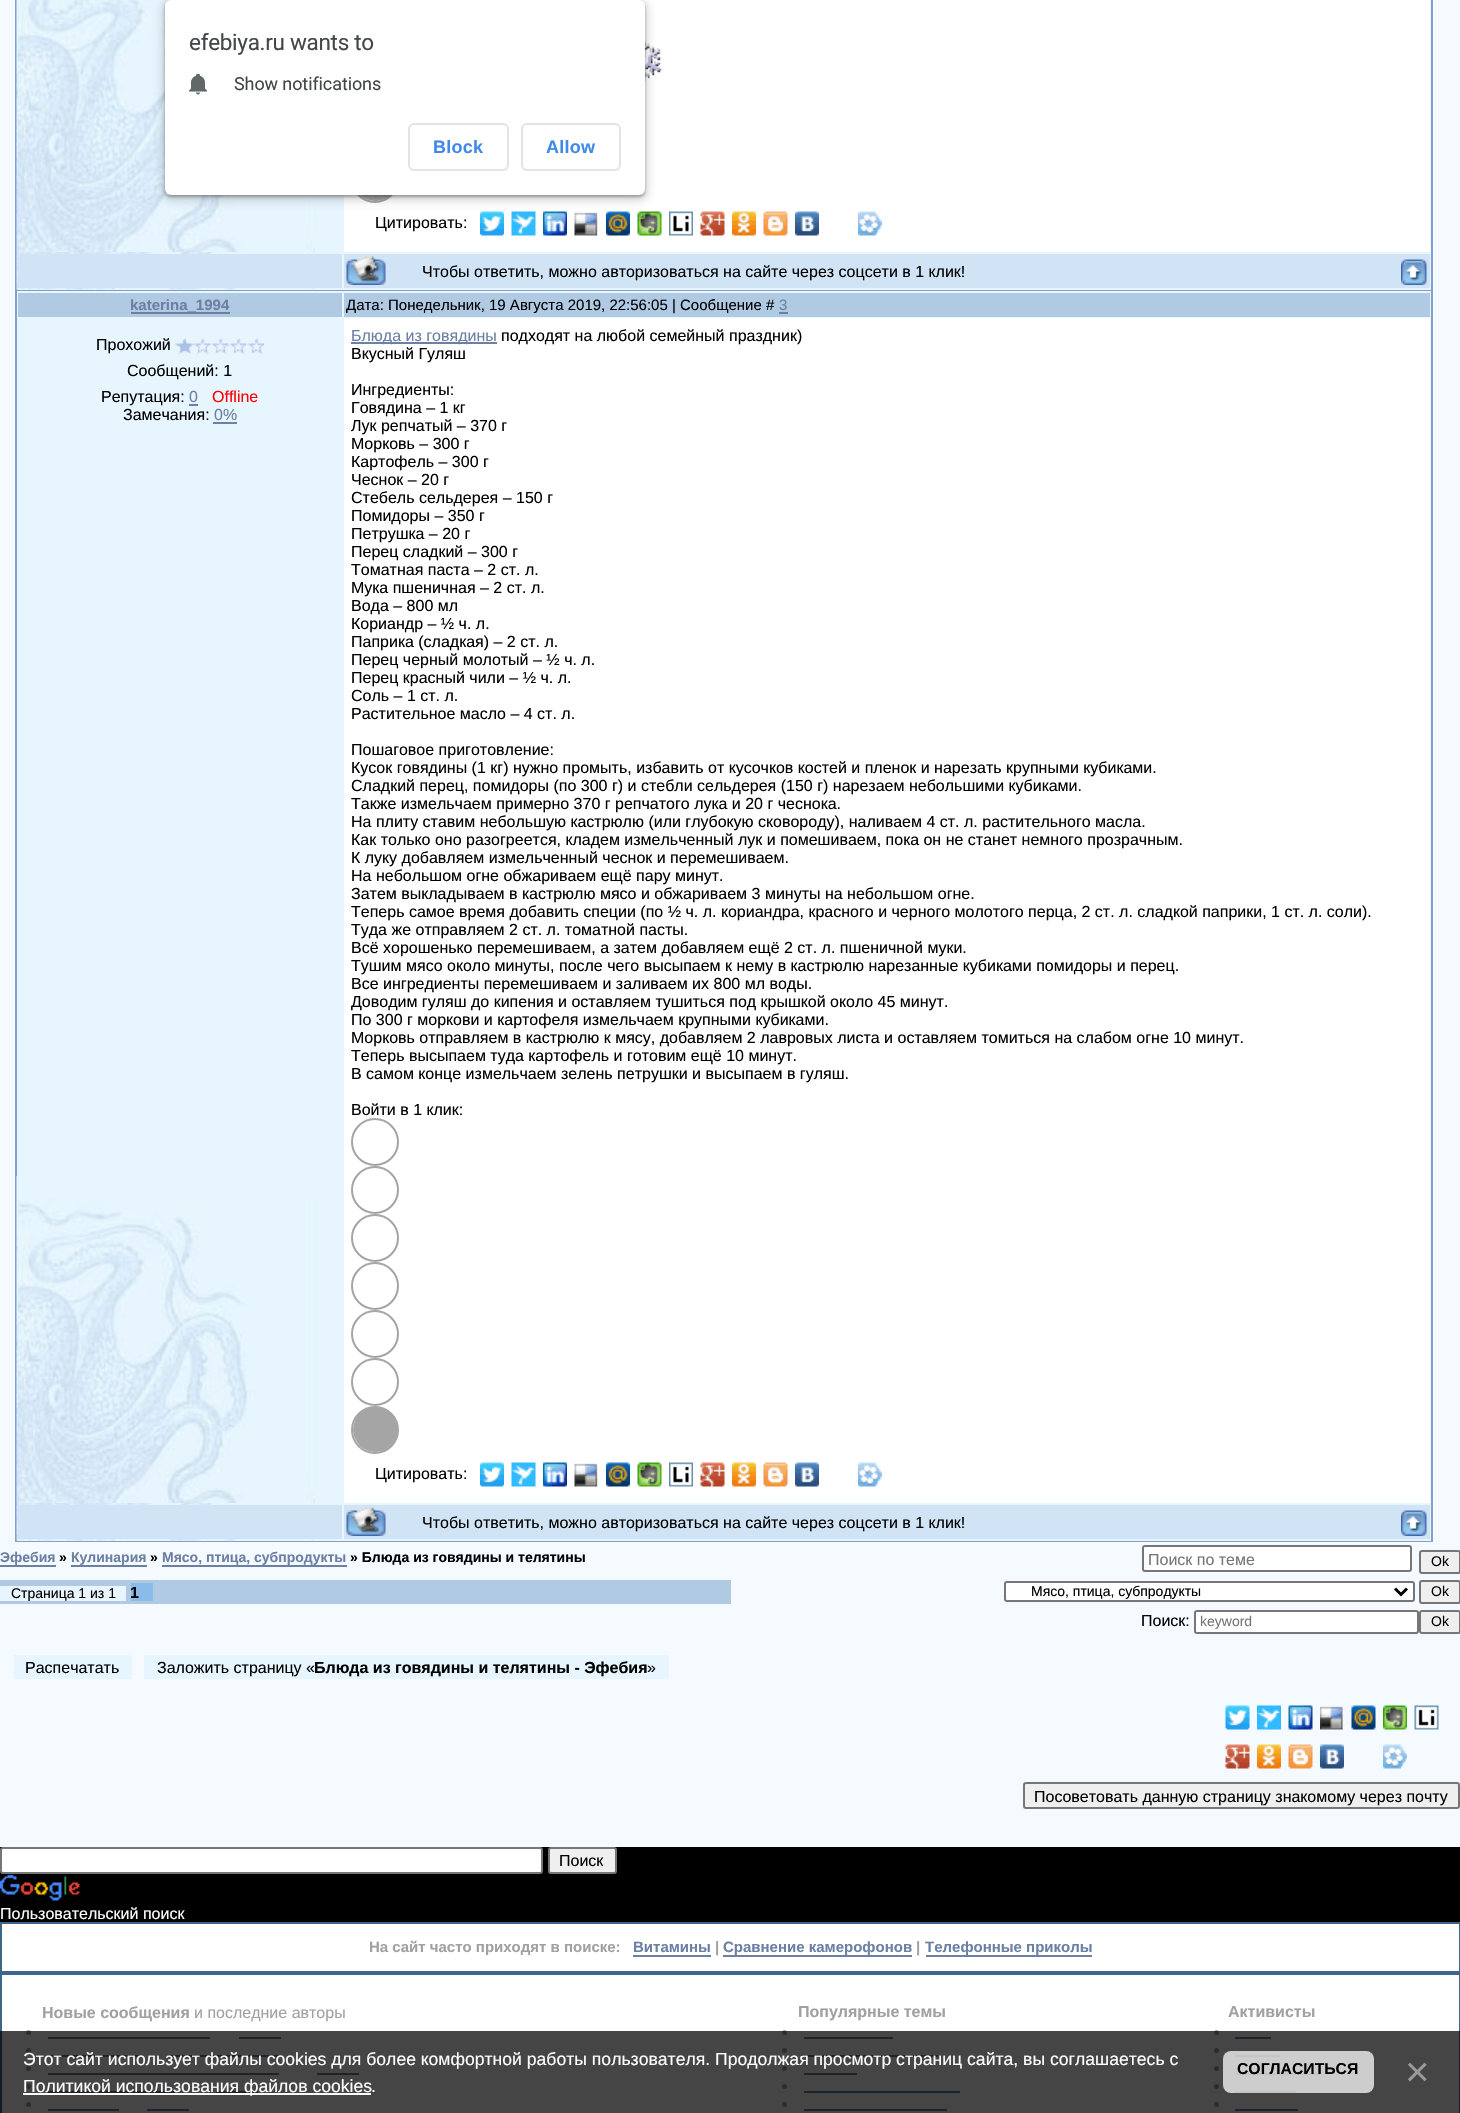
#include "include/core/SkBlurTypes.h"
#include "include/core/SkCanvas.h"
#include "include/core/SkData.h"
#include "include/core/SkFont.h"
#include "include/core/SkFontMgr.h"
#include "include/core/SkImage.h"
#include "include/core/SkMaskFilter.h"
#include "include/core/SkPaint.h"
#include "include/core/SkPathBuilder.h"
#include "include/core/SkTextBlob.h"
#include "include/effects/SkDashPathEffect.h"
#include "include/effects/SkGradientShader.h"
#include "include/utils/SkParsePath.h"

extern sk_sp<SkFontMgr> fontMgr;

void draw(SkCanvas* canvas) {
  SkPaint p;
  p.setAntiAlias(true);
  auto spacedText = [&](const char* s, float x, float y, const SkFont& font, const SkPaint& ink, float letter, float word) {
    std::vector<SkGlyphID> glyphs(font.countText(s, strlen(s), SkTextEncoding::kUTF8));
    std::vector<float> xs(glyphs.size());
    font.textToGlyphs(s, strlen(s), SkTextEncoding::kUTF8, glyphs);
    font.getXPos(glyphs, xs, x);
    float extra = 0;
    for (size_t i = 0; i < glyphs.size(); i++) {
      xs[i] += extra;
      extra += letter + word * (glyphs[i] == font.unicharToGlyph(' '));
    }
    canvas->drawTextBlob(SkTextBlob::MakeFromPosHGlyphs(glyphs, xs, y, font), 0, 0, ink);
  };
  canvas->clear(SkColorSetRGB(244, 250, 255));
  p.setColor(SkColorSetRGB(132, 159, 202));
  canvas->drawRect(SkRect::MakeLTRB(15, 0, 1433, 1542), p);
  p.setColor(SkColorSetRGB(231, 245, 255));
  canvas->drawRect(SkRect::MakeLTRB(17, 0, 1431, 290), p);
  p.setColor(SK_ColorWHITE);
  canvas->drawRect(SkRect::MakeLTRB(344, 0, 1430, 252), p);
  canvas->drawImageRect(SkImages::DeferredFromEncodedData(SkData::MakeFromFileName("images/2.png")), SkRect::MakeLTRB(645, 40, 662, 81), SkSamplingOptions());
  canvas->drawImageRect(SkImages::DeferredFromEncodedData(SkData::MakeFromFileName("images/3.png")), SkRect::MakeLTRB(16, 0, 314, 290), SkSamplingOptions());
  canvas->drawImageRect(SkImages::DeferredFromEncodedData(SkData::MakeFromFileName("images/4.png")), SkRect::MakeLTRB(18, 0, 315, 252), SkSamplingOptions());
  p.setStyle(SkPaint::kStroke_Style);
  p.setStrokeWidth(2);
  p.setColor(SkColorSetRGB(165, 165, 165));
  canvas->drawCircle(375, 179, 23, p);
  p.setStyle(SkPaint::kFill_Style);
  canvas->drawCircle(375.5f, 178.5f, 22.5f, p);
  canvas->drawImageRect(SkImages::DeferredFromEncodedData(SkData::MakeFromFileName("images/5.png")), SkRect::MakeLTRB(480, 211, 504, 236), SkSamplingOptions());
  canvas->drawImageRect(SkImages::DeferredFromEncodedData(SkData::MakeFromFileName("images/6.png")), SkRect::MakeLTRB(511, 211, 536, 236), SkSamplingOptions());
  canvas->drawImageRect(SkImages::DeferredFromEncodedData(SkData::MakeFromFileName("images/7.png")), SkRect::MakeLTRB(543, 211, 567, 236), SkSamplingOptions());
  canvas->drawImageRect(SkImages::DeferredFromEncodedData(SkData::MakeFromFileName("images/8.png")), SkRect::MakeLTRB(574, 212, 598, 236), SkSamplingOptions());
  canvas->drawImageRect(SkImages::DeferredFromEncodedData(SkData::MakeFromFileName("images/9.png")), SkRect::MakeLTRB(606, 211, 630, 236), SkSamplingOptions());
  canvas->drawImageRect(SkImages::DeferredFromEncodedData(SkData::MakeFromFileName("images/10.png")), SkRect::MakeLTRB(637, 211, 662, 236), SkSamplingOptions());
  p.setColor(SkColorSetARGB(38, 0, 0, 0));
  p.setMaskFilter(SkMaskFilter::MakeBlur(kNormal_SkBlurStyle, 4.5f));
  canvas->drawRoundRect(SkRect::MakeLTRB(162, 0, 648, 201), 9, 9, p);
  p.setMaskFilter(nullptr);
  p.setColor(SkColorSetARGB(77, 0, 0, 0));
  p.setMaskFilter(SkMaskFilter::MakeBlur(kNormal_SkBlurStyle, 1.5f));
  canvas->drawRoundRect(SkRect::MakeLTRB(165, 2, 645, 197), 6, 6, p);
  p.setMaskFilter(nullptr);
  p.setColor(SK_ColorWHITE);
  canvas->drawRoundRect(SkRect::MakeLTRB(165, 0, 645, 195), 6, 6, p);
  canvas->drawImageRect(SkImages::DeferredFromEncodedData(SkData::MakeFromFileName("images/1.png")), SkRect::MakeLTRB(189, 74, 207, 95), SkSamplingOptions());
  p.setStyle(SkPaint::kStroke_Style);
  p.setColor(SkColorSetRGB(228, 228, 228));
  canvas->drawRoundRect(SkRect::MakeLTRB(409, 124, 508, 170), 5, 5, p);
  canvas->drawRoundRect(SkRect::MakeLTRB(522, 124, 620, 170), 5, 5, p);
  canvas->drawImageRect(SkImages::DeferredFromEncodedData(SkData::MakeFromFileName("images/11.png")), SkRect::MakeLTRB(669, 211, 693, 236), SkSamplingOptions());
  canvas->drawImageRect(SkImages::DeferredFromEncodedData(SkData::MakeFromFileName("images/12.png")), SkRect::MakeLTRB(700, 211, 725, 236), SkSamplingOptions());
  canvas->drawImageRect(SkImages::DeferredFromEncodedData(SkData::MakeFromFileName("images/13.png")), SkRect::MakeLTRB(732, 211, 756, 236), SkSamplingOptions());
  canvas->drawImageRect(SkImages::DeferredFromEncodedData(SkData::MakeFromFileName("images/14.png")), SkRect::MakeLTRB(763, 211, 788, 236), SkSamplingOptions());
  canvas->drawImageRect(SkImages::DeferredFromEncodedData(SkData::MakeFromFileName("images/15.png")), SkRect::MakeLTRB(795, 211, 819, 236), SkSamplingOptions());
  canvas->drawImageRect(SkImages::DeferredFromEncodedData(SkData::MakeFromFileName("images/16.png")), SkRect::MakeLTRB(858, 211, 882, 236), SkSamplingOptions());
  p.setStyle(SkPaint::kFill_Style);
  p.setColor(SkColorSetRGB(209, 228, 245));
  canvas->drawRect(SkRect::MakeLTRB(18, 254, 342, 288), p);
  canvas->drawRect(SkRect::MakeLTRB(344, 254, 1430, 288), p);
  canvas->drawImageRect(SkImages::DeferredFromEncodedData(SkData::MakeFromFileName("images/17.png")), SkRect::MakeLTRB(346, 256, 386, 285), SkSamplingOptions());
  canvas->drawImageRect(SkImages::DeferredFromEncodedData(SkData::MakeFromFileName("images/18.png")), SkRect::MakeLTRB(1401, 259, 1427, 285), SkSamplingOptions());
  p.setColor(SkColorSetRGB(231, 245, 255));
  canvas->drawRect(SkRect::MakeLTRB(17, 291, 1431, 1541), p);
  canvas->drawImageRect(SkImages::DeferredFromEncodedData(SkData::MakeFromFileName("images/19.png")), SkRect::MakeLTRB(16, 1176, 314, 1541), SkSamplingOptions());
  p.setColor(SkColorSetRGB(176, 202, 228));
  canvas->drawRect(SkRect::MakeLTRB(18, 293, 342, 317), p);
  p.setColor(SkColorSetRGB(107, 128, 163));
  canvas->drawRect(SkRect::MakeLTRB(131, 312, 230, 314), p);
  p.setColor(SkColorSetRGB(176, 202, 228));
  canvas->drawRect(SkRect::MakeLTRB(344, 293, 1430, 317), p);
  p.setColor(SkColorSetRGB(107, 128, 163));
  canvas->drawRect(SkRect::MakeLTRB(779, 312, 788, 314), p);
  p.setColor(SkColorSetRGB(231, 245, 255));
  canvas->drawRect(SkRect::MakeLTRB(18, 1176, 313, 1503), p);
  canvas->drawImageRect(SkImages::DeferredFromEncodedData(SkData::MakeFromFileName("images/20.png")), SkRect::MakeLTRB(18, 1199, 315, 1503), SkSamplingOptions());
  canvas->drawImageRect(SkImages::DeferredFromEncodedData(SkData::MakeFromFileName("images/21.png")), SkRect::MakeLTRB(175, 338, 264, 354), SkSamplingOptions());
  p.setColor(SkColorSetRGB(107, 128, 163));
  canvas->drawRect(SkRect::MakeLTRB(189, 404, 198, 406), p);
  canvas->drawRect(SkRect::MakeLTRB(213, 422, 237, 424), p);
  p.setColor(SK_ColorWHITE);
  canvas->drawRect(SkRect::MakeLTRB(344, 318, 1430, 1503), p);
  p.setColor(SkColorSetRGB(107, 128, 163));
  canvas->drawRect(SkRect::MakeLTRB(351, 342, 497, 344), p);
  p.setStyle(SkPaint::kStroke_Style);
  p.setColor(SkColorSetRGB(165, 165, 165));
  canvas->drawCircle(375, 1142, 23, p);
  canvas->drawCircle(375, 1190, 23, p);
  canvas->drawCircle(375, 1238, 23, p);
  canvas->drawCircle(375, 1286, 23, p);
  canvas->drawCircle(375, 1334, 23, p);
  canvas->drawCircle(375, 1382, 23, p);
  canvas->drawCircle(375, 1430, 23, p);
  p.setStyle(SkPaint::kFill_Style);
  canvas->drawCircle(375.5f, 1429.5f, 22.5f, p);
  canvas->drawImageRect(SkImages::DeferredFromEncodedData(SkData::MakeFromFileName("images/5.png")), SkRect::MakeLTRB(480, 1462, 504, 1487), SkSamplingOptions());
  canvas->drawImageRect(SkImages::DeferredFromEncodedData(SkData::MakeFromFileName("images/6.png")), SkRect::MakeLTRB(511, 1462, 536, 1487), SkSamplingOptions());
  canvas->drawImageRect(SkImages::DeferredFromEncodedData(SkData::MakeFromFileName("images/7.png")), SkRect::MakeLTRB(543, 1462, 567, 1487), SkSamplingOptions());
  canvas->drawImageRect(SkImages::DeferredFromEncodedData(SkData::MakeFromFileName("images/8.png")), SkRect::MakeLTRB(574, 1463, 598, 1487), SkSamplingOptions());
  canvas->drawImageRect(SkImages::DeferredFromEncodedData(SkData::MakeFromFileName("images/9.png")), SkRect::MakeLTRB(606, 1462, 630, 1487), SkSamplingOptions());
  canvas->drawImageRect(SkImages::DeferredFromEncodedData(SkData::MakeFromFileName("images/10.png")), SkRect::MakeLTRB(637, 1462, 662, 1487), SkSamplingOptions());
  canvas->drawImageRect(SkImages::DeferredFromEncodedData(SkData::MakeFromFileName("images/11.png")), SkRect::MakeLTRB(669, 1462, 693, 1487), SkSamplingOptions());
  canvas->drawImageRect(SkImages::DeferredFromEncodedData(SkData::MakeFromFileName("images/12.png")), SkRect::MakeLTRB(700, 1462, 725, 1487), SkSamplingOptions());
  canvas->drawImageRect(SkImages::DeferredFromEncodedData(SkData::MakeFromFileName("images/13.png")), SkRect::MakeLTRB(732, 1462, 756, 1487), SkSamplingOptions());
  canvas->drawImageRect(SkImages::DeferredFromEncodedData(SkData::MakeFromFileName("images/14.png")), SkRect::MakeLTRB(763, 1462, 788, 1487), SkSamplingOptions());
  canvas->drawImageRect(SkImages::DeferredFromEncodedData(SkData::MakeFromFileName("images/15.png")), SkRect::MakeLTRB(795, 1462, 819, 1487), SkSamplingOptions());
  canvas->drawImageRect(SkImages::DeferredFromEncodedData(SkData::MakeFromFileName("images/16.png")), SkRect::MakeLTRB(858, 1462, 882, 1487), SkSamplingOptions());
  p.setColor(SkColorSetRGB(209, 228, 245));
  canvas->drawRect(SkRect::MakeLTRB(18, 1505, 342, 1539), p);
  canvas->drawRect(SkRect::MakeLTRB(344, 1505, 1430, 1539), p);
  canvas->drawImageRect(SkImages::DeferredFromEncodedData(SkData::MakeFromFileName("images/17.png")), SkRect::MakeLTRB(346, 1507, 386, 1536), SkSamplingOptions());
  canvas->drawImageRect(SkImages::DeferredFromEncodedData(SkData::MakeFromFileName("images/18.png")), SkRect::MakeLTRB(1401, 1510, 1427, 1536), SkSamplingOptions());
  p.setColor(SkColorSetRGB(107, 128, 163));
  canvas->drawRect(SkRect::MakeLTRB(0, 1565, 56, 1567), p);
  canvas->drawRect(SkRect::MakeLTRB(71, 1565, 147, 1567), p);
  canvas->drawRect(SkRect::MakeLTRB(162, 1565, 347, 1567), p);
  p.setColor(SK_ColorWHITE);
  canvas->drawRoundRect(SkRect::MakeLTRB(1143, 1546, 1411, 1571), 2, 2, p);
  p.setStyle(SkPaint::kStroke_Style);
  p.setColor(SkColorSetRGB(118, 118, 118));
  canvas->drawRoundRect(SkRect::MakeLTRB(1143, 1546, 1411, 1571), 2, 2, p);
  p.setStyle(SkPaint::kFill_Style);
  p.setColor(SkColorSetRGB(239, 239, 239));
  canvas->drawRoundRect(SkRect::MakeLTRB(1420, 1551, 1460, 1573), 2, 2, p);
  p.setStyle(SkPaint::kStroke_Style);
  p.setColor(SkColorSetRGB(118, 118, 118));
  canvas->drawRoundRect(SkRect::MakeLTRB(1420, 1551, 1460, 1573), 2, 2, p);
  p.setStyle(SkPaint::kFill_Style);
  p.setColor(SkColorSetRGB(176, 202, 228));
  canvas->drawRect(SkRect::MakeLTRB(0, 1580, 731, 1604), p);
  p.setColor(SkColorSetRGB(232, 245, 254));
  canvas->drawRect(SkRect::MakeLTRB(0, 1586, 126, 1601), p);
  p.setColor(SkColorSetRGB(138, 188, 235));
  canvas->drawRect(SkRect::MakeLTRB(131, 1583, 153, 1601), p);
  p.setColor(SK_ColorWHITE);
  canvas->drawRoundRect(SkRect::MakeLTRB(1005, 1582, 1414, 1601), 2, 2, p);
  p.setStyle(SkPaint::kStroke_Style);
  p.setColor(SkColorSetRGB(118, 118, 118));
  canvas->drawRoundRect(SkRect::MakeLTRB(1005, 1582, 1414, 1601), 2, 2, p);
  p.setStrokeWidth(3);
  p.setColor(SK_ColorBLACK);
  canvas->drawPath(SkPathBuilder().moveTo(1395, 1588.5f).lineTo(1401, 1594.5f).lineTo(1407, 1588.5f).detach(), p);
  p.setStyle(SkPaint::kFill_Style);
  p.setColor(SkColorSetRGB(239, 239, 239));
  canvas->drawRoundRect(SkRect::MakeLTRB(1420, 1581, 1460, 1603), 2, 2, p);
  p.setStyle(SkPaint::kStroke_Style);
  p.setStrokeWidth(2);
  p.setColor(SkColorSetRGB(118, 118, 118));
  canvas->drawRoundRect(SkRect::MakeLTRB(1420, 1581, 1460, 1603), 2, 2, p);
  p.setStyle(SkPaint::kFill_Style);
  p.setColor(SK_ColorWHITE);
  canvas->drawRoundRect(SkRect::MakeLTRB(1195, 1611, 1418, 1633), 2, 2, p);
  p.setStyle(SkPaint::kStroke_Style);
  p.setColor(SkColorSetRGB(118, 118, 118));
  canvas->drawRoundRect(SkRect::MakeLTRB(1195, 1611, 1418, 1633), 2, 2, p);
  p.setStyle(SkPaint::kFill_Style);
  p.setColor(SkColorSetRGB(239, 239, 239));
  canvas->drawRoundRect(SkRect::MakeLTRB(1420, 1611, 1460, 1633), 2, 2, p);
  p.setStyle(SkPaint::kStroke_Style);
  p.setColor(SkColorSetRGB(118, 118, 118));
  canvas->drawRoundRect(SkRect::MakeLTRB(1420, 1611, 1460, 1633), 2, 2, p);
  p.setStyle(SkPaint::kFill_Style);
  p.setColor(SkColorSetRGB(231, 245, 254));
  canvas->drawRect(SkRect::MakeLTRB(14, 1655, 132, 1679), p);
  canvas->drawRect(SkRect::MakeLTRB(144, 1655, 669, 1679), p);
  canvas->drawImageRect(SkImages::DeferredFromEncodedData(SkData::MakeFromFileName("images/22.png")), SkRect::MakeLTRB(1225, 1705, 1250, 1730), SkSamplingOptions());
  canvas->drawImageRect(SkImages::DeferredFromEncodedData(SkData::MakeFromFileName("images/23.png")), SkRect::MakeLTRB(1257, 1705, 1281, 1730), SkSamplingOptions());
  canvas->drawImageRect(SkImages::DeferredFromEncodedData(SkData::MakeFromFileName("images/24.png")), SkRect::MakeLTRB(1288, 1705, 1313, 1730), SkSamplingOptions());
  canvas->drawImageRect(SkImages::DeferredFromEncodedData(SkData::MakeFromFileName("images/25.png")), SkRect::MakeLTRB(1320, 1706, 1343, 1730), SkSamplingOptions());
  canvas->drawImageRect(SkImages::DeferredFromEncodedData(SkData::MakeFromFileName("images/26.png")), SkRect::MakeLTRB(1351, 1705, 1376, 1730), SkSamplingOptions());
  canvas->drawImageRect(SkImages::DeferredFromEncodedData(SkData::MakeFromFileName("images/27.png")), SkRect::MakeLTRB(1383, 1705, 1407, 1730), SkSamplingOptions());
  canvas->drawImageRect(SkImages::DeferredFromEncodedData(SkData::MakeFromFileName("images/28.png")), SkRect::MakeLTRB(1414, 1705, 1439, 1730), SkSamplingOptions());
  canvas->drawImageRect(SkImages::DeferredFromEncodedData(SkData::MakeFromFileName("images/29.png")), SkRect::MakeLTRB(1225, 1744, 1250, 1769), SkSamplingOptions());
  canvas->drawImageRect(SkImages::DeferredFromEncodedData(SkData::MakeFromFileName("images/30.png")), SkRect::MakeLTRB(1257, 1744, 1281, 1769), SkSamplingOptions());
  canvas->drawImageRect(SkImages::DeferredFromEncodedData(SkData::MakeFromFileName("images/31.png")), SkRect::MakeLTRB(1288, 1744, 1313, 1769), SkSamplingOptions());
  canvas->drawImageRect(SkImages::DeferredFromEncodedData(SkData::MakeFromFileName("images/32.png")), SkRect::MakeLTRB(1320, 1744, 1344, 1769), SkSamplingOptions());
  canvas->drawImageRect(SkImages::DeferredFromEncodedData(SkData::MakeFromFileName("images/33.png")), SkRect::MakeLTRB(1383, 1744, 1407, 1769), SkSamplingOptions());
  p.setColor(SkColorSetRGB(239, 239, 239));
  canvas->drawRoundRect(SkRect::MakeLTRB(1024, 1783, 1459, 1808), 2, 2, p);
  p.setStyle(SkPaint::kStroke_Style);
  p.setColor(SkColorSetRGB(118, 118, 118));
  canvas->drawRoundRect(SkRect::MakeLTRB(1024, 1783, 1459, 1808), 2, 2, p);
  p.setStyle(SkPaint::kFill_Style);
  p.setColor(SK_ColorBLACK);
  canvas->drawRect(SkRect::MakeLTRB(0, 1847, 1460, 1922), p);
  p.setColor(SK_ColorWHITE);
  canvas->drawRoundRect(SkRect::MakeLTRB(1, 1848, 542, 1873), 2, 2, p);
  p.setStyle(SkPaint::kStroke_Style);
  p.setColor(SkColorSetRGB(118, 118, 118));
  canvas->drawRoundRect(SkRect::MakeLTRB(1, 1848, 542, 1873), 2, 2, p);
  p.setStyle(SkPaint::kFill_Style);
  p.setColor(SkColorSetRGB(239, 239, 239));
  canvas->drawRoundRect(SkRect::MakeLTRB(549, 1848, 616, 1873), 2, 2, p);
  p.setStyle(SkPaint::kStroke_Style);
  p.setColor(SkColorSetRGB(118, 118, 118));
  canvas->drawRoundRect(SkRect::MakeLTRB(549, 1848, 616, 1873), 2, 2, p);
  canvas->drawImageRect(SkImages::DeferredFromEncodedData(SkData::MakeFromFileName("images/34.png")), SkRect::MakeLTRB(0, 1874, 80, 1901), SkSamplingOptions());
  p.setStyle(SkPaint::kFill_Style);
  p.setColor(SK_ColorWHITE);
  canvas->drawRect(SkRect::MakeLTRB(1, 1923, 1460, 1972), p);
  p.setStyle(SkPaint::kStroke_Style);
  p.setColor(SkColorSetRGB(62, 102, 139));
  canvas->drawRect(SkRect::MakeLTRB(1, 1923, 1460, 1972), p);
  p.setStyle(SkPaint::kFill_Style);
  p.setColor(SkColorSetRGB(107, 128, 163));
  canvas->drawRect(SkRect::MakeLTRB(633, 1955, 711, 1957), p);
  canvas->drawRect(SkRect::MakeLTRB(723, 1955, 912, 1957), p);
  canvas->drawRect(SkRect::MakeLTRB(926, 1955, 1092, 1957), p);
  p.setColor(SK_ColorWHITE);
  canvas->drawRect(SkRect::MakeLTRB(1, 1974, 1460, 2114), p);
  p.setStyle(SkPaint::kStroke_Style);
  p.setColor(SkColorSetRGB(62, 102, 139));
  canvas->drawRect(SkRect::MakeLTRB(1, 1974, 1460, 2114), p);
  p.setStyle(SkPaint::kFill_Style);
  p.setColor(SkColorSetRGB(161, 161, 161));
  canvas->drawCircle(28.5f, 2032.5f, 2.5f, p);
  p.setColor(SkColorSetRGB(107, 128, 163));
  canvas->drawRect(SkRect::MakeLTRB(48, 2037, 210, 2039), p);
  canvas->drawRect(SkRect::MakeLTRB(239, 2037, 281, 2039), p);
  p.setColor(SkColorSetRGB(161, 161, 161));
  canvas->drawCircle(28.5f, 2050.5f, 2.5f, p);
  p.setColor(SkColorSetRGB(107, 128, 163));
  canvas->drawRect(SkRect::MakeLTRB(48, 2055, 140, 2057), p);
  canvas->drawRect(SkRect::MakeLTRB(168, 2055, 279, 2057), p);
  p.setColor(SkColorSetRGB(161, 161, 161));
  canvas->drawCircle(28.5f, 2068.5f, 2.5f, p);
  p.setColor(SkColorSetRGB(107, 128, 163));
  canvas->drawRect(SkRect::MakeLTRB(48, 2073, 279, 2075), p);
  canvas->drawRect(SkRect::MakeLTRB(317, 2073, 359, 2075), p);
  p.setColor(SkColorSetRGB(161, 161, 161));
  canvas->drawCircle(28.5f, 2086.5f, 2.5f, p);
  p.setColor(SkColorSetRGB(107, 128, 163));
  canvas->drawRect(SkRect::MakeLTRB(48, 2091, 179, 2093), p);
  canvas->drawRect(SkRect::MakeLTRB(216, 2091, 258, 2093), p);
  p.setColor(SkColorSetRGB(161, 161, 161));
  canvas->drawCircle(28.5f, 2104.5f, 2.5f, p);
  p.setColor(SkColorSetRGB(107, 128, 163));
  canvas->drawRect(SkRect::MakeLTRB(48, 2109, 119, 2111), p);
  canvas->drawRect(SkRect::MakeLTRB(147, 2109, 189, 2111), p);
  p.setColor(SkColorSetRGB(161, 161, 161));
  canvas->drawCircle(784.5f, 2032.5f, 2.5f, p);
  p.setColor(SkColorSetRGB(107, 128, 163));
  canvas->drawRect(SkRect::MakeLTRB(804, 2037, 893, 2039), p);
  p.setColor(SkColorSetRGB(161, 161, 161));
  canvas->drawCircle(784.5f, 2050.5f, 2.5f, p);
  p.setColor(SkColorSetRGB(107, 128, 163));
  canvas->drawRect(SkRect::MakeLTRB(804, 2055, 938, 2057), p);
  p.setColor(SkColorSetRGB(161, 161, 161));
  canvas->drawCircle(784.5f, 2068.5f, 2.5f, p);
  p.setColor(SkColorSetRGB(107, 128, 163));
  canvas->drawRect(SkRect::MakeLTRB(804, 2073, 857, 2075), p);
  p.setColor(SkColorSetRGB(161, 161, 161));
  canvas->drawCircle(784.5f, 2086.5f, 2.5f, p);
  p.setColor(SkColorSetRGB(107, 128, 163));
  canvas->drawRect(SkRect::MakeLTRB(804, 2091, 960, 2093), p);
  p.setColor(SkColorSetRGB(161, 161, 161));
  canvas->drawCircle(784.5f, 2104.5f, 2.5f, p);
  p.setColor(SkColorSetRGB(107, 128, 163));
  canvas->drawRect(SkRect::MakeLTRB(804, 2109, 947, 2111), p);
  p.setColor(SkColorSetRGB(161, 161, 161));
  canvas->drawCircle(1216.5f, 2032.5f, 2.5f, p);
  p.setColor(SkColorSetRGB(107, 128, 163));
  canvas->drawRect(SkRect::MakeLTRB(1235, 2037, 1271, 2039), p);
  p.setColor(SkColorSetRGB(161, 161, 161));
  canvas->drawCircle(1216.5f, 2050.5f, 2.5f, p);
  p.setColor(SkColorSetRGB(107, 128, 163));
  canvas->drawRect(SkRect::MakeLTRB(1235, 2055, 1280, 2057), p);
  p.setColor(SkColorSetRGB(161, 161, 161));
  canvas->drawCircle(1216.5f, 2068.5f, 2.5f, p);
  p.setColor(SkColorSetRGB(107, 128, 163));
  canvas->drawRect(SkRect::MakeLTRB(1235, 2073, 1320, 2075), p);
  p.setColor(SkColorSetRGB(161, 161, 161));
  canvas->drawCircle(1216.5f, 2086.5f, 2.5f, p);
  p.setColor(SkColorSetRGB(107, 128, 163));
  canvas->drawRect(SkRect::MakeLTRB(1235, 2091, 1296, 2093), p);
  p.setColor(SkColorSetRGB(161, 161, 161));
  canvas->drawCircle(1216.5f, 2104.5f, 2.5f, p);
  p.setColor(SkColorSetRGB(107, 128, 163));
  canvas->drawRect(SkRect::MakeLTRB(1235, 2109, 1298, 2111), p);
  p.setColor(SkColorSetARGB(186, 0, 0, 0));
  canvas->drawRect(SkRect::MakeLTRB(0, 2031, 1460, 2113), p);
  p.setColor(SK_ColorWHITE);
  canvas->drawRect(SkRect::MakeLTRB(23, 2093, 371, 2095), p);
  p.setColor(SkColorSetARGB(186, 255, 255, 255));
  canvas->drawRoundRect(SkRect::MakeLTRB(1223, 2051, 1374, 2093), 8, 8, p);
  SkFont font1(fontMgr->matchFamilyStyle("Roboto", SkFontStyle::Normal()), 22.5f);
  font1.setSubpixel(true);
  p.setColor(SkColorSetRGB(67, 71, 73));
  spacedText("efebiya.ru wants to", 189, 50, font1, p, -0.3f, 0);
  SkFont font2(fontMgr->matchFamilyStyle("Roboto", SkFontStyle::Normal()), 18);
  font2.setSubpixel(true);
  spacedText("Show notifications", 234, 90, font2, p, -0.1f, 0);
  SkFont font3(fontMgr->matchFamilyStyle("Liberation Sans", SkFontStyle::Bold()), 18);
  font3.setSubpixel(true);
  p.setColor(SkColorSetRGB(64, 137, 232));
  spacedText("Block", 433, 153, font3, p, 0.25f, 0);
  spacedText("Allow", 546, 153, font3, p, 0.25f, 0);
  SkFont font4(fontMgr->matchFamilyStyle("Liberation Sans", SkFontStyle::Normal()), 16);
  font4.setSubpixel(true);
  p.setColor(SK_ColorBLACK);
  canvas->drawString("Цитировать:", 375, 228, font4, p);
  canvas->drawString("Чтобы ответить, можно авторизоваться на сайте через соцсети в 1 клик!", 422, 277, font4, p);
  SkFont font5(fontMgr->matchFamilyStyle("Liberation Sans", SkFontStyle::Bold()), 15);
  font5.setSubpixel(true);
  p.setColor(SkColorSetRGB(107, 128, 163));
  canvas->drawString("katerina_1994", 130, 310, font5, p);
  SkFont font6(fontMgr->matchFamilyStyle("Liberation Sans", SkFontStyle::Normal()), 15);
  font6.setSubpixel(true);
  p.setColor(SK_ColorBLACK);
  canvas->drawString("Дата: Понедельник, 19 Августа 2019, 22:56:05 | Сообщение #", 346, 310, font6, p);
  p.setColor(SkColorSetRGB(107, 128, 163));
  canvas->drawString("3", 779, 310, font6, p);
  p.setColor(SK_ColorBLACK);
  canvas->drawString("Прохожий", 96, 350, font4, p);
  canvas->drawString("Сообщений: 1", 127, 376, font4, p);
  canvas->drawString("Репутация:", 101, 402, font4, p);
  p.setColor(SkColorSetRGB(107, 128, 163));
  canvas->drawString("0", 189, 402, font4, p);
  p.setColor(SkColorSetRGB(255, 0, 0));
  canvas->drawString("Offline", 212, 402, font4, p);
  p.setColor(SK_ColorBLACK);
  canvas->drawString("Замечания:", 123, 420, font4, p);
  p.setColor(SkColorSetRGB(107, 128, 163));
  canvas->drawString("0%", 214, 420, font4, p);
  canvas->drawString("Блюда из говядины", 351, 341, font4, p);
  p.setColor(SK_ColorBLACK);
  canvas->drawString("подходят на любой семейный праздник)", 501, 341, font4, p);
  canvas->drawString("Вкусный Гуляш", 351, 359, font4, p);
  canvas->drawString("Ингредиенты:", 351, 395, font4, p);
  canvas->drawString("Говядина – 1 кг", 351, 413, font4, p);
  canvas->drawString("Лук репчатый – 370 г", 351, 431, font4, p);
  canvas->drawString("Морковь – 300 г", 351, 449, font4, p);
  canvas->drawString("Картофель – 300 г", 351, 467, font4, p);
  canvas->drawString("Чеснок – 20 г", 351, 485, font4, p);
  canvas->drawString("Стебель сельдерея – 150 г", 351, 503, font4, p);
  canvas->drawString("Помидоры – 350 г", 351, 521, font4, p);
  canvas->drawString("Петрушка – 20 г", 351, 539, font4, p);
  canvas->drawString("Перец сладкий – 300 г", 351, 557, font4, p);
  canvas->drawString("Томатная паста – 2 ст. л.", 351, 575, font4, p);
  canvas->drawString("Мука пшеничная – 2 ст. л.", 351, 593, font4, p);
  canvas->drawString("Вода – 800 мл", 351, 611, font4, p);
  canvas->drawString("Кориандр – ½ ч. л.", 351, 629, font4, p);
  canvas->drawString("Паприка (сладкая) – 2 ст. л.", 351, 647, font4, p);
  canvas->drawString("Перец черный молотый – ½ ч. л.", 351, 665, font4, p);
  canvas->drawString("Перец красный чили – ½ ч. л.", 351, 683, font4, p);
  canvas->drawString("Соль – 1 ст. л.", 351, 701, font4, p);
  canvas->drawString("Растительное масло – 4 ст. л.", 351, 719, font4, p);
  canvas->drawString("Пошаговое приготовление:", 351, 755, font4, p);
  canvas->drawString("Кусок говядины (1 кг) нужно промыть, избавить от кусочков костей и пленок и нарезать крупными кубиками.", 351, 773, font4, p);
  canvas->drawString("Сладкий перец, помидоры (по 300 г) и стебли сельдерея (150 г) нарезаем небольшими кубиками.", 351, 791, font4, p);
  canvas->drawString("Также измельчаем примерно 370 г репчатого лука и 20 г чеснока.", 351, 809, font4, p);
  canvas->drawString("На плиту ставим небольшую кастрюлю (или глубокую сковороду), наливаем 4 ст. л. растительного масла.", 351, 827, font4, p);
  canvas->drawString("Как только оно разогреется, кладем измельченный лук и помешиваем, пока он не станет немного прозрачным.", 351, 845, font4, p);
  canvas->drawString("К луку добавляем измельченный чеснок и перемешиваем.", 351, 863, font4, p);
  canvas->drawString("На небольшом огне обжариваем ещё пару минут.", 351, 881, font4, p);
  canvas->drawString("Затем выкладываем в кастрюлю мясо и обжариваем 3 минуты на небольшом огне.", 351, 899, font4, p);
  canvas->drawString("Теперь самое время добавить специи (по ½ ч. л. кориандра, красного и черного молотого перца, 2 ст. л. сладкой паприки, 1 ст. л. соли).", 351, 917, font4, p);
  canvas->drawString("Туда же отправляем 2 ст. л. томатной пасты.", 351, 935, font4, p);
  canvas->drawString("Всё хорошенько перемешиваем, а затем добавляем ещё 2 ст. л. пшеничной муки.", 351, 953, font4, p);
  canvas->drawString("Тушим мясо около минуты, после чего высыпаем к нему в кастрюлю нарезанные кубиками помидоры и перец.", 351, 971, font4, p);
  canvas->drawString("Все ингредиенты перемешиваем и заливаем их 800 мл воды.", 351, 989, font4, p);
  canvas->drawString("Доводим гуляш до кипения и оставляем тушиться под крышкой около 45 минут.", 351, 1007, font4, p);
  canvas->drawString("По 300 г моркови и картофеля измельчаем крупными кубиками.", 351, 1025, font4, p);
  canvas->drawString("Морковь отправляем в кастрюлю к мясу, добавляем 2 лавровых листа и оставляем томиться на слабом огне 10 минут.", 351, 1043, font4, p);
  canvas->drawString("Теперь высыпаем туда картофель и готовим ещё 10 минут.", 351, 1061, font4, p);
  canvas->drawString("В самом конце измельчаем зелень петрушки и высыпаем в гуляш.", 351, 1079, font4, p);
  canvas->drawString("Войти в 1 клик:", 351, 1115, font4, p);
  canvas->drawString("Цитировать:", 375, 1479, font4, p);
  canvas->drawString("Чтобы ответить, можно авторизоваться на сайте через соцсети в 1 клик!", 422, 1528, font4, p);
  SkFont font7(fontMgr->matchFamilyStyle("Liberation Sans", SkFontStyle::Bold()), 14);
  font7.setSubpixel(true);
  p.setColor(SkColorSetRGB(107, 128, 163));
  canvas->drawString("Эфебия", 0, 1562, font7, p);
  p.setColor(SK_ColorBLACK);
  canvas->drawString("»", 59, 1562, font7, p);
  p.setColor(SkColorSetRGB(107, 128, 163));
  canvas->drawString("Кулинария", 71, 1562, font7, p);
  p.setColor(SK_ColorBLACK);
  canvas->drawString("»", 150, 1562, font7, p);
  p.setColor(SkColorSetRGB(107, 128, 163));
  canvas->drawString("Мясо, птица, субпродукты", 162, 1562, font7, p);
  p.setColor(SK_ColorBLACK);
  canvas->drawString("» Блюда из говядины и телятины", 350, 1562, font7, p);
  p.setColor(SkColorSetRGB(117, 117, 117));
  canvas->drawString("Поиск по теме", 1148, 1565, font4, p);
  SkFont font8(fontMgr->matchFamilyStyle("Liberation Sans", SkFontStyle::Normal()), 14);
  font8.setSubpixel(true);
  p.setColor(SK_ColorBLACK);
  canvas->drawString("Ok", 1431, 1566, font8, p);
  canvas->drawString("Страница 1 из 1", 11, 1598, font8, p);
  SkFont font9(fontMgr->matchFamilyStyle("Liberation Sans", SkFontStyle::Bold()), 16);
  font9.setSubpixel(true);
  canvas->drawString("1", 130, 1598, font9, p);
  canvas->drawString("Мясо, птица, субпродукты", 1031, 1596, font8, p);
  canvas->drawString("Ok", 1431, 1596, font8, p);
  canvas->drawString("Поиск:", 1141, 1626, font4, p);
  p.setColor(SkColorSetRGB(117, 117, 117));
  canvas->drawString("keyword", 1200, 1626, font8, p);
  p.setColor(SK_ColorBLACK);
  canvas->drawString("Ok", 1431, 1626, font8, p);
  canvas->drawString("Распечатать", 25, 1673, font4, p);
  canvas->drawString("Заложить страницу «", 157, 1673, font4, p);
  canvas->drawString("Блюда из говядины и телятины - Эфебия", 314, 1673, font9, p);
  canvas->drawString("»", 647, 1673, font4, p);
  canvas->drawString("Посоветовать данную страницу знакомому через почту", 1034, 1802, font4, p);
  canvas->drawString("Поиск", 559, 1866, font4, p);
  p.setColor(SK_ColorWHITE);
  canvas->drawString("Пользовательский поиск", 0, 1919, font4, p);
  p.setColor(SkColorSetRGB(161, 161, 161));
  canvas->drawString("На сайт часто приходят в поиске:", 369, 1952, font5, p);
  p.setColor(SkColorSetRGB(107, 128, 163));
  canvas->drawString("Витамины", 633, 1952, font5, p);
  p.setColor(SkColorSetRGB(161, 161, 161));
  canvas->drawString("|", 715, 1952, font5, p);
  p.setColor(SkColorSetRGB(107, 128, 163));
  canvas->drawString("Сравнение камерофонов", 723, 1952, font5, p);
  p.setColor(SkColorSetRGB(161, 161, 161));
  canvas->drawString("|", 916, 1952, font5, p);
  p.setColor(SkColorSetRGB(107, 128, 163));
  canvas->drawString("Телефонные приколы", 925, 1952, font5, p);
  p.setColor(SkColorSetRGB(161, 161, 161));
  canvas->drawString("Новые сообщения", 42, 2018, font9, p);
  canvas->drawString("и последние авторы", 194, 2018, font4, p);
  canvas->drawString("Популярные темы", 798, 2017, font9, p);
  canvas->drawString("Активисты", 1228, 2017, font9, p);
  SkFont font10(fontMgr->matchFamilyStyle("Liberation Sans", SkFontStyle::Normal()), 17.6f);
  font10.setSubpixel(true);
  p.setColor(SK_ColorWHITE);
  canvas->drawString("Этот сайт использует файлы cookies для более комфортной работы пользователя. Продолжая просмотр страниц сайта, вы соглашаетесь с", 23, 2065, font10, p);
  canvas->drawString("Политикой использования файлов cookies", 23, 2092, font10, p);
  canvas->drawString(".", 371, 2092, font10, p);
  SkFont font11(fontMgr->matchFamilyStyle("Liberation Sans", SkFontStyle::Bold()), 15.75f);
  font11.setSubpixel(true);
  p.setColor(SK_ColorBLACK);
  canvas->drawString("СОГЛАСИТЬСЯ", 1237, 2074, font11, p);
  SkFont font12(fontMgr->matchFamilyStyle("Liberation Sans", SkFontStyle::Normal()), 42);
  font12.setSubpixel(true);
  p.setColor(SkColorSetRGB(153, 153, 153));
  canvas->drawString("×", 1405, 2086, font12, p);
}
